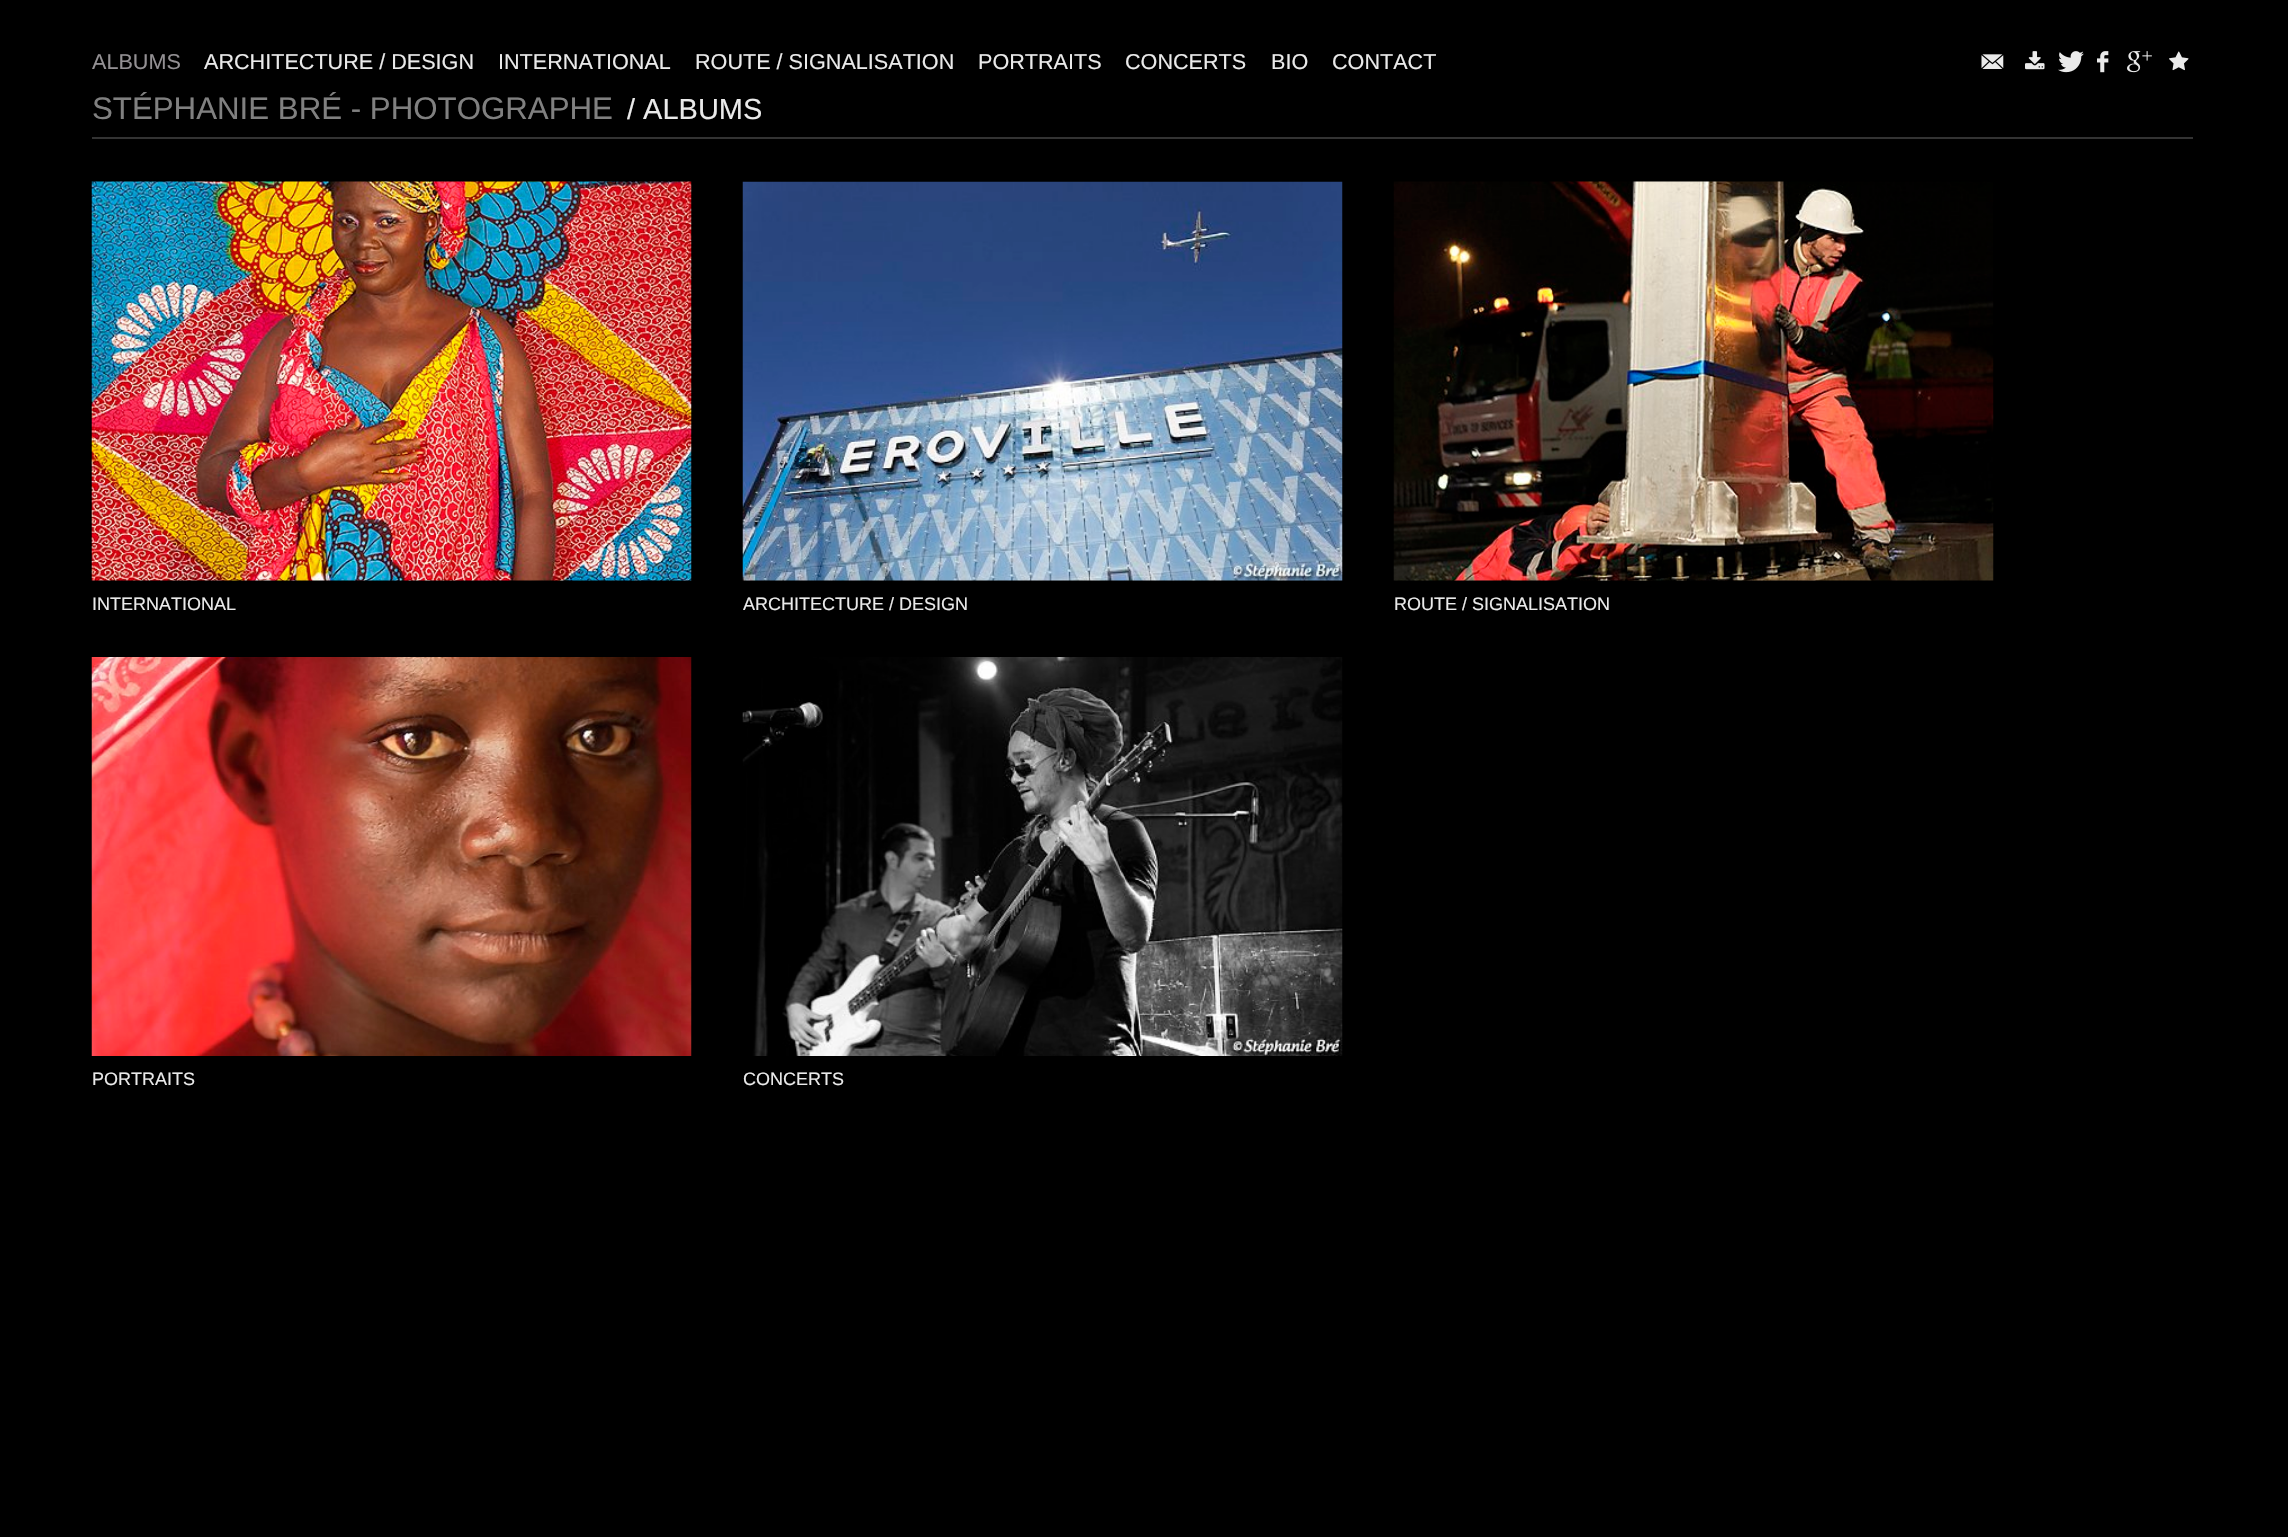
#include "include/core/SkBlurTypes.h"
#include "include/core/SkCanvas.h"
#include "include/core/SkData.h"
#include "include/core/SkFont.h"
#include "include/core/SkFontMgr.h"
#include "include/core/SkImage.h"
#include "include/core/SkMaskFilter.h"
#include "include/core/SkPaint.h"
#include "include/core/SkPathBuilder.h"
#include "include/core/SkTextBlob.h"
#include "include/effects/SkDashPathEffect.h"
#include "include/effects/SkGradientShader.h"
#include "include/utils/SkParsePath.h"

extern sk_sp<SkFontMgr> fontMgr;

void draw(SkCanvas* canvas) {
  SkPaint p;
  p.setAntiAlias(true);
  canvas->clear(SK_ColorBLACK);
  canvas->drawImageRect(SkImages::DeferredFromEncodedData(SkData::MakeFromFileName("images/1.png")), SkRect::MakeLTRB(1981, 54, 2004, 69), SkSamplingOptions());
  canvas->drawImageRect(SkImages::DeferredFromEncodedData(SkData::MakeFromFileName("images/2.png")), SkRect::MakeLTRB(2025, 51, 2045, 70), SkSamplingOptions());
  canvas->drawImageRect(SkImages::DeferredFromEncodedData(SkData::MakeFromFileName("images/3.png")), SkRect::MakeLTRB(2058, 51, 2084, 73), SkSamplingOptions());
  canvas->drawImageRect(SkImages::DeferredFromEncodedData(SkData::MakeFromFileName("images/4.png")), SkRect::MakeLTRB(2097, 51, 2109, 73), SkSamplingOptions());
  canvas->drawImageRect(SkImages::DeferredFromEncodedData(SkData::MakeFromFileName("images/5.png")), SkRect::MakeLTRB(2127, 51, 2152, 73), SkSamplingOptions());
  canvas->drawImageRect(SkImages::DeferredFromEncodedData(SkData::MakeFromFileName("images/6.png")), SkRect::MakeLTRB(2169, 51, 2189, 71), SkSamplingOptions());
  p.setColor(SkColorSetRGB(51, 51, 51));
  canvas->drawRect(SkRect::MakeLTRB(92, 137, 2193, 139), p);
  canvas->drawImageRect(SkImages::DeferredFromEncodedData(SkData::MakeFromFileName("images/7.png")), SkRect::MakeLTRB(91, 181, 692, 581), SkSamplingOptions());
  canvas->drawImageRect(SkImages::DeferredFromEncodedData(SkData::MakeFromFileName("images/8.png")), SkRect::MakeLTRB(742, 181, 1343, 581), SkSamplingOptions());
  canvas->drawImageRect(SkImages::DeferredFromEncodedData(SkData::MakeFromFileName("images/9.png")), SkRect::MakeLTRB(1393, 181, 1994, 581), SkSamplingOptions());
  canvas->drawImageRect(SkImages::DeferredFromEncodedData(SkData::MakeFromFileName("images/10.png")), SkRect::MakeLTRB(91, 657, 692, 1056), SkSamplingOptions());
  canvas->drawImageRect(SkImages::DeferredFromEncodedData(SkData::MakeFromFileName("images/11.png")), SkRect::MakeLTRB(742, 657, 1343, 1056), SkSamplingOptions());
  SkFont font1(fontMgr->matchFamilyStyle("Liberation Sans", SkFontStyle::Normal()), 21.6f);
  font1.setSubpixel(true);
  p.setColor(SkColorSetRGB(147, 144, 147));
  canvas->drawString("ALBUMS", 92, 69, font1, p);
  p.setColor(SkColorSetRGB(234, 234, 234));
  canvas->drawString("ARCHITECTURE / DESIGN", 204, 69, font1, p);
  canvas->drawString("INTERNATIONAL", 498, 69, font1, p);
  canvas->drawString("ROUTE / SIGNALISATION", 695, 69, font1, p);
  canvas->drawString("PORTRAITS", 978, 69, font1, p);
  canvas->drawString("CONCERTS", 1125, 69, font1, p);
  canvas->drawString("BIO", 1271, 69, font1, p);
  canvas->drawString("CONTACT", 1332, 69, font1, p);
  SkFont font2(fontMgr->matchFamilyStyle("Liberation Sans", SkFontStyle::Normal()), 31.25f);
  font2.setSubpixel(true);
  p.setColor(SkColorSetRGB(128, 128, 128));
  canvas->drawString("STÉPHANIE BRÉ - PHOTOGRAPHE", 92, 119, font2, p);
  SkFont font3(fontMgr->matchFamilyStyle("Liberation Sans", SkFontStyle::Normal()), 29);
  font3.setSubpixel(true);
  p.setColor(SkColorSetRGB(234, 234, 234));
  canvas->drawString("/ ALBUMS", 627, 119, font3, p);
  SkFont font4(fontMgr->matchFamilyStyle("Liberation Sans", SkFontStyle::Normal()), 18);
  font4.setSubpixel(true);
  canvas->drawString("INTERNATIONAL", 92, 610, font4, p);
  canvas->drawString("ARCHITECTURE / DESIGN", 743, 610, font4, p);
  canvas->drawString("ROUTE / SIGNALISATION", 1394, 610, font4, p);
  canvas->drawString("PORTRAITS", 92, 1085, font4, p);
  canvas->drawString("CONCERTS", 743, 1085, font4, p);
}
